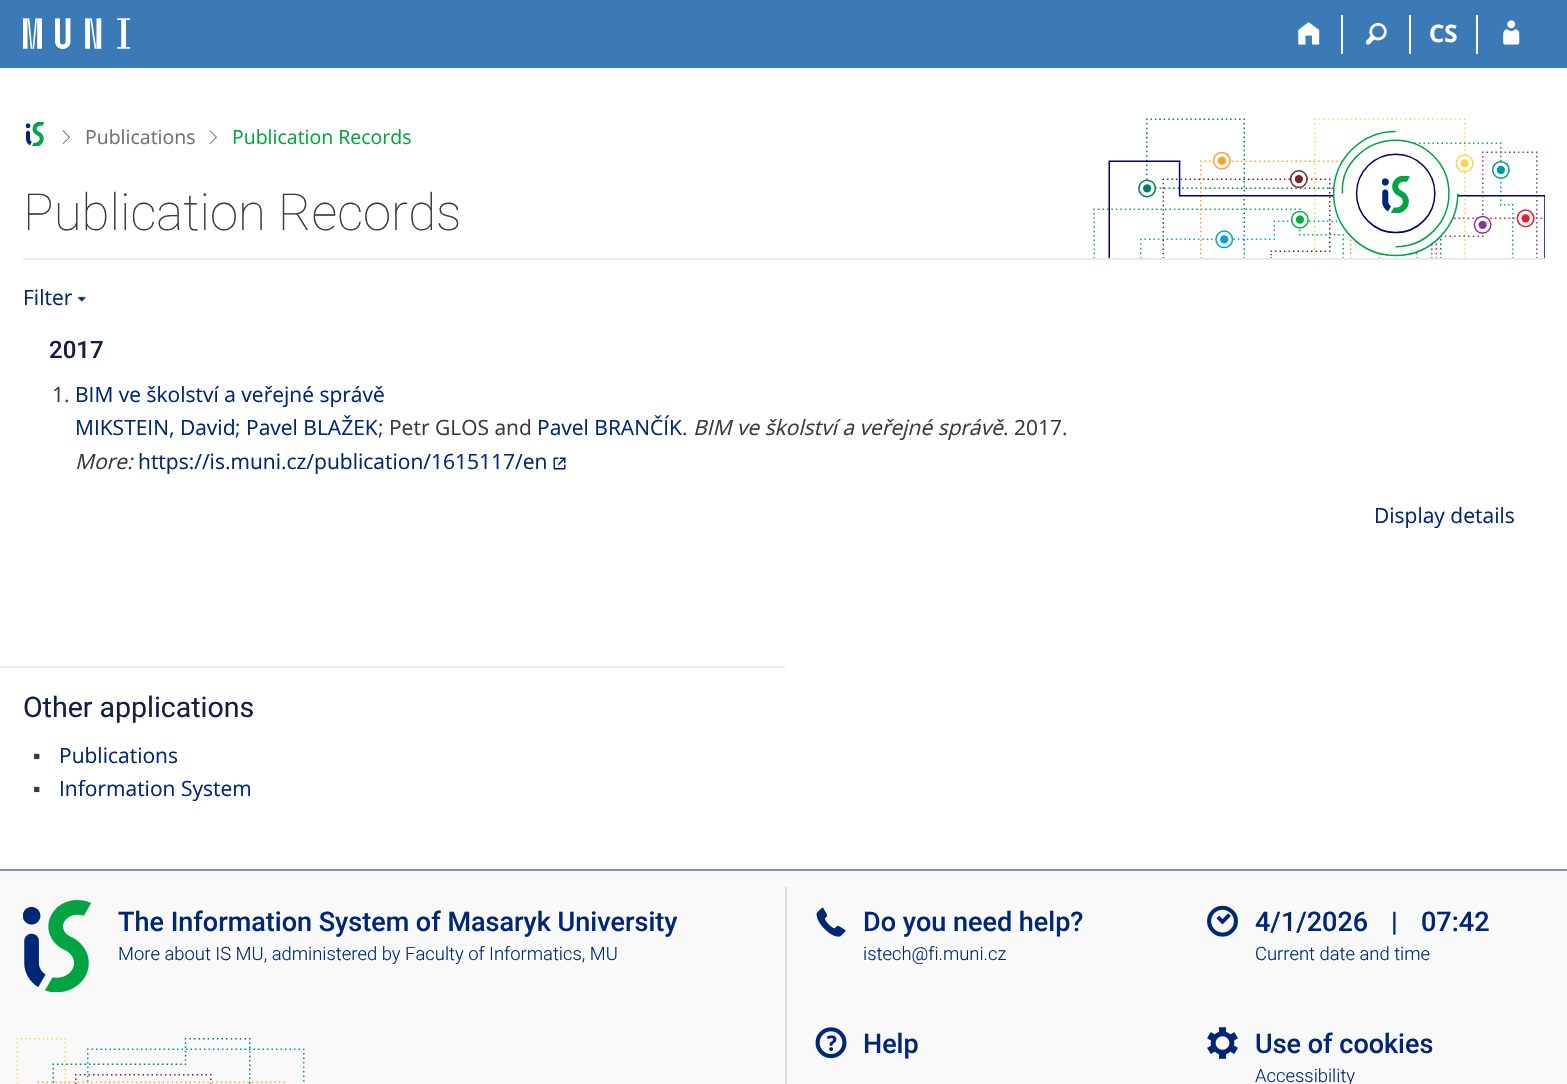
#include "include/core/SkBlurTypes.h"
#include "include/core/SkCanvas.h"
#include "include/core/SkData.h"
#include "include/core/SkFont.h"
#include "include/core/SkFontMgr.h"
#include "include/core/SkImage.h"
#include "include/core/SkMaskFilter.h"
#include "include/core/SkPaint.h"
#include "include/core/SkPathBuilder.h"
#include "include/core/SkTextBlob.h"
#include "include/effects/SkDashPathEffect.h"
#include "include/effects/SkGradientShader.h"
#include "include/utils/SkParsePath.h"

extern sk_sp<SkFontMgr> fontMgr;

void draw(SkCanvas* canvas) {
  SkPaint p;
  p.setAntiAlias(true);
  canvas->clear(SK_ColorWHITE);
  p.setColor(SkColorSetRGB(60, 122, 183));
  canvas->drawRect(SkRect::MakeLTRB(0, 0, 1567, 68), p);
  canvas->drawImageRect(SkImages::DeferredFromEncodedData(SkData::MakeFromFileName("images/1.png")), SkRect::MakeLTRB(23, 18, 131, 49), SkSamplingOptions());
  p.setColor(SK_ColorWHITE);
  canvas->drawRect(SkRect::MakeLTRB(1341, 15, 1343, 54), p);
  canvas->drawImageRect(SkImages::DeferredFromEncodedData(SkData::MakeFromFileName("images/2.png")), SkRect::MakeLTRB(1298, 22, 1320, 45), SkSamplingOptions());
  canvas->drawRect(SkRect::MakeLTRB(1409, 15, 1411, 54), p);
  canvas->drawImageRect(SkImages::DeferredFromEncodedData(SkData::MakeFromFileName("images/3.png")), SkRect::MakeLTRB(1365, 23, 1387, 45), SkSamplingOptions());
  canvas->drawRect(SkRect::MakeLTRB(1476, 15, 1478, 54), p);
  canvas->drawImageRect(SkImages::DeferredFromEncodedData(SkData::MakeFromFileName("images/4.png")), SkRect::MakeLTRB(1503, 20, 1520, 45), SkSamplingOptions());
  canvas->drawImageRect(SkImages::DeferredFromEncodedData(SkData::MakeFromFileName("images/5.png")), SkRect::MakeLTRB(26, 122, 45, 146), SkSamplingOptions());
  canvas->drawImageRect(SkImages::DeferredFromEncodedData(SkData::MakeFromFileName("images/6.png")), SkRect::MakeLTRB(62, 130, 70, 144), SkSamplingOptions());
  canvas->drawImageRect(SkImages::DeferredFromEncodedData(SkData::MakeFromFileName("images/6.png")), SkRect::MakeLTRB(209, 130, 217, 144), SkSamplingOptions());
  canvas->drawImageRect(SkImages::DeferredFromEncodedData(SkData::MakeFromFileName("images/7.png")), SkRect::MakeLTRB(1093, 118, 1545, 258), SkSamplingOptions());
  canvas->drawImageRect(SkImages::DeferredFromEncodedData(SkData::MakeFromFileName("images/8.png")), SkRect::MakeLTRB(1382, 176, 1410, 213), SkSamplingOptions());
  p.setColor(SkColorSetRGB(234, 234, 234));
  canvas->drawRect(SkRect::MakeLTRB(23, 258, 1545, 260), p);
  canvas->drawImageRect(SkImages::DeferredFromEncodedData(SkData::MakeFromFileName("images/9.png")), SkRect::MakeLTRB(77, 296, 86, 302), SkSamplingOptions());
  canvas->drawImageRect(SkImages::DeferredFromEncodedData(SkData::MakeFromFileName("images/10.png")), SkRect::MakeLTRB(553, 457, 566, 470), SkSamplingOptions());
  canvas->drawRect(SkRect::MakeLTRB(0, 666, 785, 668), p);
  p.setColor(SkColorSetRGB(249, 249, 249));
  canvas->drawRect(SkRect::MakeLTRB(0, 871, 1567, 1084), p);
  p.setColor(SkColorSetRGB(125, 144, 184));
  canvas->drawRect(SkRect::MakeLTRB(0, 869, 1567, 871), p);
  canvas->drawImageRect(SkImages::DeferredFromEncodedData(SkData::MakeFromFileName("images/11.png")), SkRect::MakeLTRB(16, 1038, 305, 1084), SkSamplingOptions());
  canvas->drawImageRect(SkImages::DeferredFromEncodedData(SkData::MakeFromFileName("images/12.png")), SkRect::MakeLTRB(23, 900, 92, 992), SkSamplingOptions());
  p.setColor(SkColorSetRGB(221, 221, 221));
  canvas->drawRect(SkRect::MakeLTRB(785, 887, 787, 1084), p);
  canvas->drawImageRect(SkImages::DeferredFromEncodedData(SkData::MakeFromFileName("images/13.png")), SkRect::MakeLTRB(816, 907, 846, 937), SkSamplingOptions());
  canvas->drawImageRect(SkImages::DeferredFromEncodedData(SkData::MakeFromFileName("images/14.png")), SkRect::MakeLTRB(815, 1027, 847, 1059), SkSamplingOptions());
  canvas->drawImageRect(SkImages::DeferredFromEncodedData(SkData::MakeFromFileName("images/15.png")), SkRect::MakeLTRB(1207, 905, 1238, 937), SkSamplingOptions());
  canvas->drawImageRect(SkImages::DeferredFromEncodedData(SkData::MakeFromFileName("images/16.png")), SkRect::MakeLTRB(1207, 1027, 1238, 1059), SkSamplingOptions());
  SkFont font1(fontMgr->matchFamilyStyle("Open Sans", SkFontStyle::Bold()), 24);
  font1.setSubpixel(true);
  p.setColor(SK_ColorWHITE);
  canvas->drawString("CS", 1429, 42, font1, p);
  SkFont font2(fontMgr->matchFamilyStyle("Open Sans", SkFontStyle::Normal()), 19.5f);
  font2.setSubpixel(true);
  p.setColor(SkColorSetRGB(112, 112, 112));
  canvas->drawString("Publications", 85, 144, font2, p);
  p.setColor(SkColorSetRGB(0, 164, 66));
  canvas->drawString("Publication Records", 232, 144, font2, p);
  SkFont font3(fontMgr->matchFamilyStyle("Roboto", SkFontStyle(100, SkFontStyle::kNormal_Width, SkFontStyle::kUpright_Slant)), 51);
  font3.setSubpixel(true);
  p.setColor(SkColorSetRGB(58, 58, 58));
  canvas->drawString("Publication Records", 23, 230, font3, p);
  SkFont font4(fontMgr->matchFamilyStyle("Open Sans", SkFontStyle::Normal()), 21);
  font4.setSubpixel(true);
  p.setColor(SkColorSetRGB(0, 39, 118));
  canvas->drawString("Filter", 23, 305, font4, p);
  SkFont font5(fontMgr->matchFamilyStyle("Roboto", SkFontStyle(500, SkFontStyle::kNormal_Width, SkFontStyle::kUpright_Slant)), 24);
  font5.setSubpixel(true);
  p.setColor(SkColorSetRGB(20, 28, 74));
  canvas->drawString("2017", 49, 358, font5, p);
  p.setColor(SkColorSetRGB(58, 58, 58));
  canvas->drawString("1.", 52, 402, font4, p);
  p.setColor(SkColorSetRGB(0, 39, 118));
  canvas->drawString("BIM ve školství a veřejné správě", 75, 402, font4, p);
  canvas->drawString("MIKSTEIN, David", 75, 435, font4, p);
  p.setColor(SkColorSetRGB(58, 58, 58));
  canvas->drawString(";", 235, 435, font4, p);
  p.setColor(SkColorSetRGB(0, 39, 118));
  canvas->drawString("Pavel BLAŽEK", 246, 435, font4, p);
  p.setColor(SkColorSetRGB(58, 58, 58));
  canvas->drawString("; Petr GLOS and", 378, 435, font4, p);
  p.setColor(SkColorSetRGB(0, 39, 118));
  canvas->drawString("Pavel BRANČÍK", 537, 435, font4, p);
  p.setColor(SkColorSetRGB(58, 58, 58));
  canvas->drawString(".", 682, 435, font4, p);
  SkFont font6(fontMgr->matchFamilyStyle("Open Sans", SkFontStyle::Italic()), 21);
  font6.setSubpixel(true);
  canvas->drawString("BIM ve školství a veřejné správě", 693, 435, font6, p);
  canvas->drawString(". 2017.", 1003, 435, font4, p);
  canvas->drawString("More:", 75, 469, font6, p);
  p.setColor(SkColorSetRGB(0, 39, 118));
  canvas->drawString("https://is.muni.cz/publication/1615117/en", 138, 469, font4, p);
  canvas->drawString("Display details", 1374, 523, font4, p);
  SkFont font7(fontMgr->matchFamilyStyle("Roboto", SkFontStyle::Normal()), 28.5f);
  font7.setSubpixel(true);
  p.setColor(SkColorSetRGB(20, 28, 74));
  canvas->drawString("Other applications", 23, 717, font7, p);
  SkFont font8(fontMgr->matchFamilyStyle("Liberation Sans", SkFontStyle::Normal()), 21);
  font8.setSubpixel(true);
  p.setColor(SkColorSetRGB(58, 58, 58));
  canvas->drawString("▪", 33, 763, font8, p);
  p.setColor(SkColorSetRGB(0, 39, 118));
  canvas->drawString("Publications", 59, 763, font4, p);
  p.setColor(SkColorSetRGB(58, 58, 58));
  canvas->drawString("▪", 33, 796, font8, p);
  p.setColor(SkColorSetRGB(0, 39, 118));
  canvas->drawString("Information System", 59, 796, font4, p);
  SkFont font9(fontMgr->matchFamilyStyle("Roboto", SkFontStyle(500, SkFontStyle::kNormal_Width, SkFontStyle::kUpright_Slant)), 27);
  font9.setSubpixel(true);
  canvas->drawString("The Information System of Masaryk University", 118, 931, font9, p);
  SkFont font10(fontMgr->matchFamilyStyle("Roboto", SkFontStyle(300, SkFontStyle::kNormal_Width, SkFontStyle::kUpright_Slant)), 18.4f);
  font10.setSubpixel(true);
  canvas->drawString("More about IS MU, administered by Faculty of Informatics, MU", 118, 960, font10, p);
  canvas->drawString("Do you need help?", 863, 931, font9, p);
  canvas->drawString("istech@fi.muni.cz", 863, 960, font10, p);
  canvas->drawString("Help", 863, 1053, font9, p);
  canvas->drawString("4/1/2026", 1255, 931, font9, p);
  canvas->drawString("|", 1391, 931, font9, p);
  canvas->drawString("07:42", 1421, 931, font9, p);
  canvas->drawString("Current date and time", 1255, 960, font10, p);
  canvas->drawString("Use of cookies", 1255, 1053, font9, p);
  canvas->drawString("Accessibility", 1255, 1082, font10, p);
}
